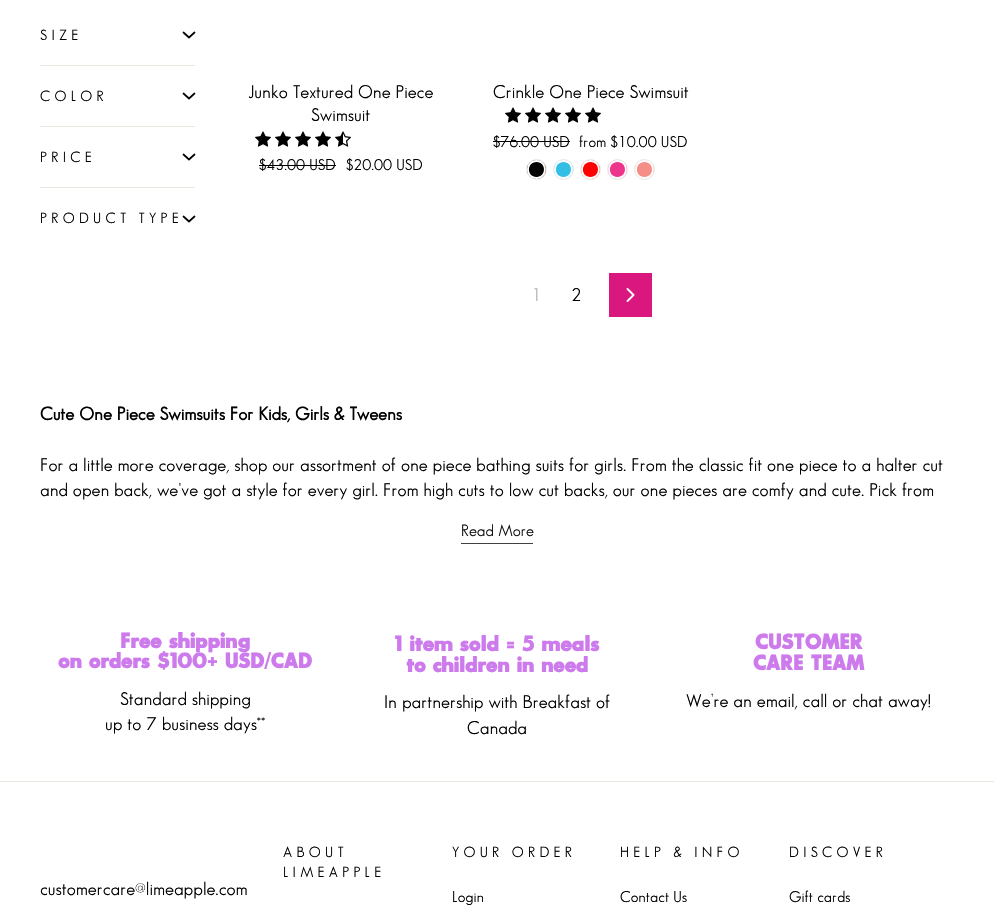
#include "include/core/SkBlurTypes.h"
#include "include/core/SkCanvas.h"
#include "include/core/SkData.h"
#include "include/core/SkFont.h"
#include "include/core/SkFontMgr.h"
#include "include/core/SkImage.h"
#include "include/core/SkMaskFilter.h"
#include "include/core/SkPaint.h"
#include "include/core/SkPathBuilder.h"
#include "include/core/SkTextBlob.h"
#include "include/effects/SkDashPathEffect.h"
#include "include/effects/SkGradientShader.h"
#include "include/utils/SkParsePath.h"

extern sk_sp<SkFontMgr> fontMgr;

void draw(SkCanvas* canvas) {
  SkPaint p;
  p.setAntiAlias(true);
  auto spacedText = [&](const char* s, float x, float y, const SkFont& font, const SkPaint& ink, float letter, float word) {
    std::vector<SkGlyphID> glyphs(font.countText(s, strlen(s), SkTextEncoding::kUTF8));
    std::vector<float> xs(glyphs.size());
    font.textToGlyphs(s, strlen(s), SkTextEncoding::kUTF8, glyphs);
    font.getXPos(glyphs, xs, x);
    float extra = 0;
    for (size_t i = 0; i < glyphs.size(); i++) {
      xs[i] += extra;
      extra += letter + word * (glyphs[i] == font.unicharToGlyph(' '));
    }
    canvas->drawTextBlob(SkTextBlob::MakeFromPosHGlyphs(glyphs, xs, y, font), 0, 0, ink);
  };
  canvas->clear(SK_ColorWHITE);
  p.setStyle(SkPaint::kStroke_Style);
  p.setStrokeWidth(1.7f);
  p.setStrokeCap(SkPaint::kRound_Cap);
  p.setStrokeJoin(SkPaint::kRound_Join);
  p.setColor(SK_ColorBLACK);
  canvas->drawPath(SkPathBuilder().moveTo(183.5f, 32.5f).lineTo(189, 37.5f).lineTo(194.5f, 32.5f).detach(), p);
  p.setStyle(SkPaint::kFill_Style);
  p.setColor(SkColorSetRGB(232, 232, 225));
  canvas->drawRect(SkRect::MakeLTRB(40, 65, 195, 66), p);
  p.setStyle(SkPaint::kStroke_Style);
  p.setColor(SK_ColorBLACK);
  canvas->drawPath(SkPathBuilder().moveTo(183.5f, 93.5f).lineTo(189, 98.5f).lineTo(194.5f, 93.5f).detach(), p);
  p.setStyle(SkPaint::kFill_Style);
  p.setColor(SkColorSetRGB(232, 232, 225));
  canvas->drawRect(SkRect::MakeLTRB(40, 126, 195, 127), p);
  p.setStyle(SkPaint::kStroke_Style);
  p.setColor(SK_ColorBLACK);
  canvas->drawPath(SkPathBuilder().moveTo(183.5f, 154.5f).lineTo(189, 159.5f).lineTo(194.5f, 154.5f).detach(), p);
  p.setStyle(SkPaint::kFill_Style);
  p.setColor(SkColorSetRGB(232, 232, 225));
  canvas->drawRect(SkRect::MakeLTRB(40, 187, 195, 188), p);
  p.setStyle(SkPaint::kStroke_Style);
  p.setColor(SK_ColorBLACK);
  canvas->drawPath(SkPathBuilder().moveTo(183.5f, 216.5f).lineTo(189, 221.5f).lineTo(194.5f, 216.5f).detach(), p);
  canvas->drawImageRect(SkImages::DeferredFromEncodedData(SkData::MakeFromFileName("images/1.png")), SkRect::MakeLTRB(255, 131, 271, 147), SkSamplingOptions());
  canvas->drawImageRect(SkImages::DeferredFromEncodedData(SkData::MakeFromFileName("images/1.png")), SkRect::MakeLTRB(275, 131, 291, 147), SkSamplingOptions());
  canvas->drawImageRect(SkImages::DeferredFromEncodedData(SkData::MakeFromFileName("images/1.png")), SkRect::MakeLTRB(295, 131, 311, 147), SkSamplingOptions());
  canvas->drawImageRect(SkImages::DeferredFromEncodedData(SkData::MakeFromFileName("images/1.png")), SkRect::MakeLTRB(315, 131, 331, 147), SkSamplingOptions());
  canvas->drawImageRect(SkImages::DeferredFromEncodedData(SkData::MakeFromFileName("images/2.png")), SkRect::MakeLTRB(335, 131, 351, 147), SkSamplingOptions());
  p.setStyle(SkPaint::kFill_Style);
  canvas->drawRect(SkRect::MakeLTRB(259, 165, 336, 166), p);
  canvas->drawImageRect(SkImages::DeferredFromEncodedData(SkData::MakeFromFileName("images/1.png")), SkRect::MakeLTRB(505, 107, 521, 123), SkSamplingOptions());
  canvas->drawImageRect(SkImages::DeferredFromEncodedData(SkData::MakeFromFileName("images/1.png")), SkRect::MakeLTRB(525, 107, 541, 123), SkSamplingOptions());
  canvas->drawImageRect(SkImages::DeferredFromEncodedData(SkData::MakeFromFileName("images/1.png")), SkRect::MakeLTRB(545, 107, 561, 123), SkSamplingOptions());
  canvas->drawImageRect(SkImages::DeferredFromEncodedData(SkData::MakeFromFileName("images/1.png")), SkRect::MakeLTRB(565, 107, 581, 123), SkSamplingOptions());
  canvas->drawImageRect(SkImages::DeferredFromEncodedData(SkData::MakeFromFileName("images/1.png")), SkRect::MakeLTRB(585, 107, 601, 123), SkSamplingOptions());
  canvas->drawRect(SkRect::MakeLTRB(493, 141, 570, 142), p);
  p.setStyle(SkPaint::kStroke_Style);
  p.setStrokeWidth(1);
  p.setStrokeCap(SkPaint::kButt_Cap);
  p.setStrokeJoin(SkPaint::kMiter_Join);
  p.setColor(SkColorSetRGB(232, 232, 225));
  canvas->drawCircle(536.5f, 169.5f, 10, p);
  p.setStyle(SkPaint::kFill_Style);
  p.setColor(SK_ColorBLACK);
  canvas->drawCircle(536.5f, 169.5f, 9.5f, p);
  p.setStyle(SkPaint::kStroke_Style);
  p.setColor(SkColorSetRGB(232, 232, 225));
  canvas->drawCircle(563.5f, 169.5f, 10, p);
  canvas->drawImageRect(SkImages::DeferredFromEncodedData(SkData::MakeFromFileName("images/3.png")), SkRect::MakeLTRB(554, 160, 573, 179), SkSamplingOptions());
  p.setStyle(SkPaint::kFill_Style);
  p.setColor(SK_ColorWHITE);
  canvas->drawPath(SkPathBuilder(SkPathFillType::kEvenOdd).moveTo(536.5f, 160).cubicTo(524, 160, 524, 179, 536.5f, 179).cubicTo(549, 179, 549, 160, 536.5f, 160).close().moveTo(536.5f, 162).cubicTo(526.5f, 162, 526.5f, 177, 536.5f, 177).cubicTo(546.5f, 177, 546.5f, 162, 536.5f, 162).close().moveTo(563.5f, 160).cubicTo(551, 160, 551, 179, 563.5f, 179).cubicTo(576, 179, 576, 160, 563.5f, 160).close().moveTo(563.5f, 162).cubicTo(553.5f, 162, 553.5f, 177, 563.5f, 177).cubicTo(573.5f, 177, 573.5f, 162, 563.5f, 162).close().detach(), p);
  p.setStyle(SkPaint::kStroke_Style);
  p.setColor(SkColorSetRGB(232, 232, 225));
  canvas->drawCircle(590.5f, 169.5f, 10, p);
  p.setStyle(SkPaint::kFill_Style);
  p.setColor(SkColorSetRGB(255, 0, 0));
  canvas->drawCircle(590.5f, 169.5f, 9.5f, p);
  p.setStyle(SkPaint::kStroke_Style);
  p.setColor(SkColorSetRGB(232, 232, 225));
  canvas->drawCircle(617.5f, 169.5f, 10, p);
  canvas->drawImageRect(SkImages::DeferredFromEncodedData(SkData::MakeFromFileName("images/4.png")), SkRect::MakeLTRB(608, 160, 627, 179), SkSamplingOptions());
  p.setStyle(SkPaint::kFill_Style);
  p.setColor(SK_ColorWHITE);
  canvas->drawPath(SkPathBuilder(SkPathFillType::kEvenOdd).moveTo(590.5f, 160).cubicTo(578, 160, 578, 179, 590.5f, 179).cubicTo(603, 179, 603, 160, 590.5f, 160).close().moveTo(590.5f, 162).cubicTo(580.5f, 162, 580.5f, 177, 590.5f, 177).cubicTo(600.5f, 177, 600.5f, 162, 590.5f, 162).close().moveTo(617.5f, 160).cubicTo(605, 160, 605, 179, 617.5f, 179).cubicTo(630, 179, 630, 160, 617.5f, 160).close().moveTo(617.5f, 162).cubicTo(607.5f, 162, 607.5f, 177, 617.5f, 177).cubicTo(627.5f, 177, 627.5f, 162, 617.5f, 162).close().detach(), p);
  p.setStyle(SkPaint::kStroke_Style);
  p.setColor(SkColorSetRGB(232, 232, 225));
  canvas->drawCircle(644.5f, 169.5f, 10, p);
  canvas->drawImageRect(SkImages::DeferredFromEncodedData(SkData::MakeFromFileName("images/5.png")), SkRect::MakeLTRB(635, 160, 654, 179), SkSamplingOptions());
  p.setStyle(SkPaint::kFill_Style);
  p.setColor(SK_ColorWHITE);
  canvas->drawPath(SkPathBuilder(SkPathFillType::kEvenOdd).moveTo(644.5f, 160).cubicTo(632, 160, 632, 179, 644.5f, 179).cubicTo(657, 179, 657, 160, 644.5f, 160).close().moveTo(644.5f, 162).cubicTo(634.5f, 162, 634.5f, 177, 644.5f, 177).cubicTo(654.5f, 177, 654.5f, 162, 644.5f, 162).close().detach(), p);
  p.setColor(SkColorSetRGB(217, 23, 127));
  canvas->drawRect(SkRect::MakeLTRB(609, 273, 652, 317), p);
  canvas->drawImageRect(SkImages::DeferredFromEncodedData(SkData::MakeFromFileName("images/6.png")), SkRect::MakeLTRB(626, 288, 635, 302), SkSamplingOptions());
  p.setColor(SkColorSetRGB(63, 66, 69));
  canvas->drawRect(SkRect::MakeLTRB(461, 543, 533, 544), p);
  p.setColor(SkColorSetRGB(232, 232, 225));
  canvas->drawRect(SkRect::MakeLTRB(0, 781, 994, 782), p);
  SkFont font1(fontMgr->matchFamilyStyle("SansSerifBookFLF", SkFontStyle::Normal()), 14.5f);
  font1.setSubpixel(true);
  p.setColor(SK_ColorBLACK);
  spacedText("SIZE", 40, 40, font1, p, 4.25f, 0);
  spacedText("COLOR", 40, 101, font1, p, 4.25f, 0);
  spacedText("PRICE", 40, 162, font1, p, 4.25f, 0);
  spacedText("PRODUCT TYPE", 40, 223, font1, p, 4.25f, 0);
  SkFont font2(fontMgr->matchFamilyStyle("SansSerifBookFLF", SkFontStyle::Normal()), 18);
  font2.setSubpixel(true);
  canvas->drawString("Junko Textured One Piece", 248, 98, font2, p);
  canvas->drawString("Swimsuit", 311, 121, font2, p);
  SkFont font3(fontMgr->matchFamilyStyle("SansSerifBookFLF", SkFontStyle::Normal()), 15.25f);
  font3.setSubpixel(true);
  canvas->drawString("$43.00 USD", 259, 170, font3, p);
  canvas->drawString("$20.00 USD", 346, 170, font3, p);
  canvas->drawString("Crinkle One Piece Swimsuit", 493, 98, font2, p);
  canvas->drawString("$76.00 USD", 493, 147, font3, p);
  canvas->drawString("from $10.00 USD", 579, 147, font3, p);
  p.setColor(SkColorSetRGB(179, 179, 179));
  canvas->drawString("1", 531, 301, font2, p);
  p.setColor(SK_ColorBLACK);
  canvas->drawString("2", 571, 301, font2, p);
  SkFont font4(fontMgr->matchFamilyStyle("SansSerifBookFLF", SkFontStyle::Bold()), 18);
  font4.setSubpixel(true);
  canvas->drawString("Cute One Piece Swimsuits For Kids, Girls & Tweens", 40, 420, font4, p);
  canvas->drawString("For a little more coverage, shop our assortment of one piece bathing suits for girls. From the classic fit one piece to a halter cut", 40, 471, font2, p);
  canvas->drawString("and open back, we've got a style for every girl. From high cuts to low cut backs, our one pieces are comfy and cute. Pick from", 40, 496, font2, p);
  SkFont font5(fontMgr->matchFamilyStyle("SansSerifBookFLF", SkFontStyle::Normal()), 16);
  font5.setSubpixel(true);
  p.setColor(SkColorSetRGB(18, 18, 18));
  canvas->drawString("Read More", 461, 536, font5, p);
  SkFont font6(fontMgr->matchFamilyStyle("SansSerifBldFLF", SkFontStyle::Bold()), 20.75f);
  font6.setSubpixel(true);
  p.setColor(SkColorSetRGB(205, 122, 237));
  canvas->drawString("Free shipping", 120, 648, font6, p);
  canvas->drawString("on orders $100+ USD/CAD", 58, 668, font6, p);
  p.setColor(SK_ColorBLACK);
  canvas->drawString("Standard shipping", 120, 705, font2, p);
  canvas->drawString("up to 7 business days**", 105, 730, font2, p);
  p.setColor(SkColorSetRGB(205, 122, 237));
  canvas->drawString("1 item sold = 5 meals", 394, 651, font6, p);
  canvas->drawString("to children in need", 406, 672, font6, p);
  p.setColor(SK_ColorBLACK);
  canvas->drawString("In partnership with Breakfast of", 384, 708, font2, p);
  canvas->drawString("Canada", 467, 734, font2, p);
  p.setColor(SkColorSetRGB(205, 122, 237));
  canvas->drawString("CUSTOMER", 755, 649, font6, p);
  canvas->drawString("CARE TEAM", 753, 670, font6, p);
  p.setColor(SK_ColorBLACK);
  canvas->drawString("We’re an email, call or chat away!", 686, 707, font2, p);
  canvas->drawString("customercare@limeapple.com", 40, 895, font2, p);
  spacedText("ABOUT", 283, 857, font1, p, 4.25f, 0);
  spacedText("LIMEAPPLE", 283, 877, font1, p, 4.25f, 0);
  spacedText("YOUR ORDER", 452, 857, font1, p, 4.25f, 0);
  canvas->drawString("Login", 452, 902, font3, p);
  spacedText("HELP & INFO", 620, 857, font1, p, 4.25f, 0);
  canvas->drawString("Contact Us", 620, 902, font3, p);
  spacedText("DISCOVER", 789, 857, font1, p, 4.25f, 0);
  canvas->drawString("Gift cards", 789, 902, font3, p);
}
